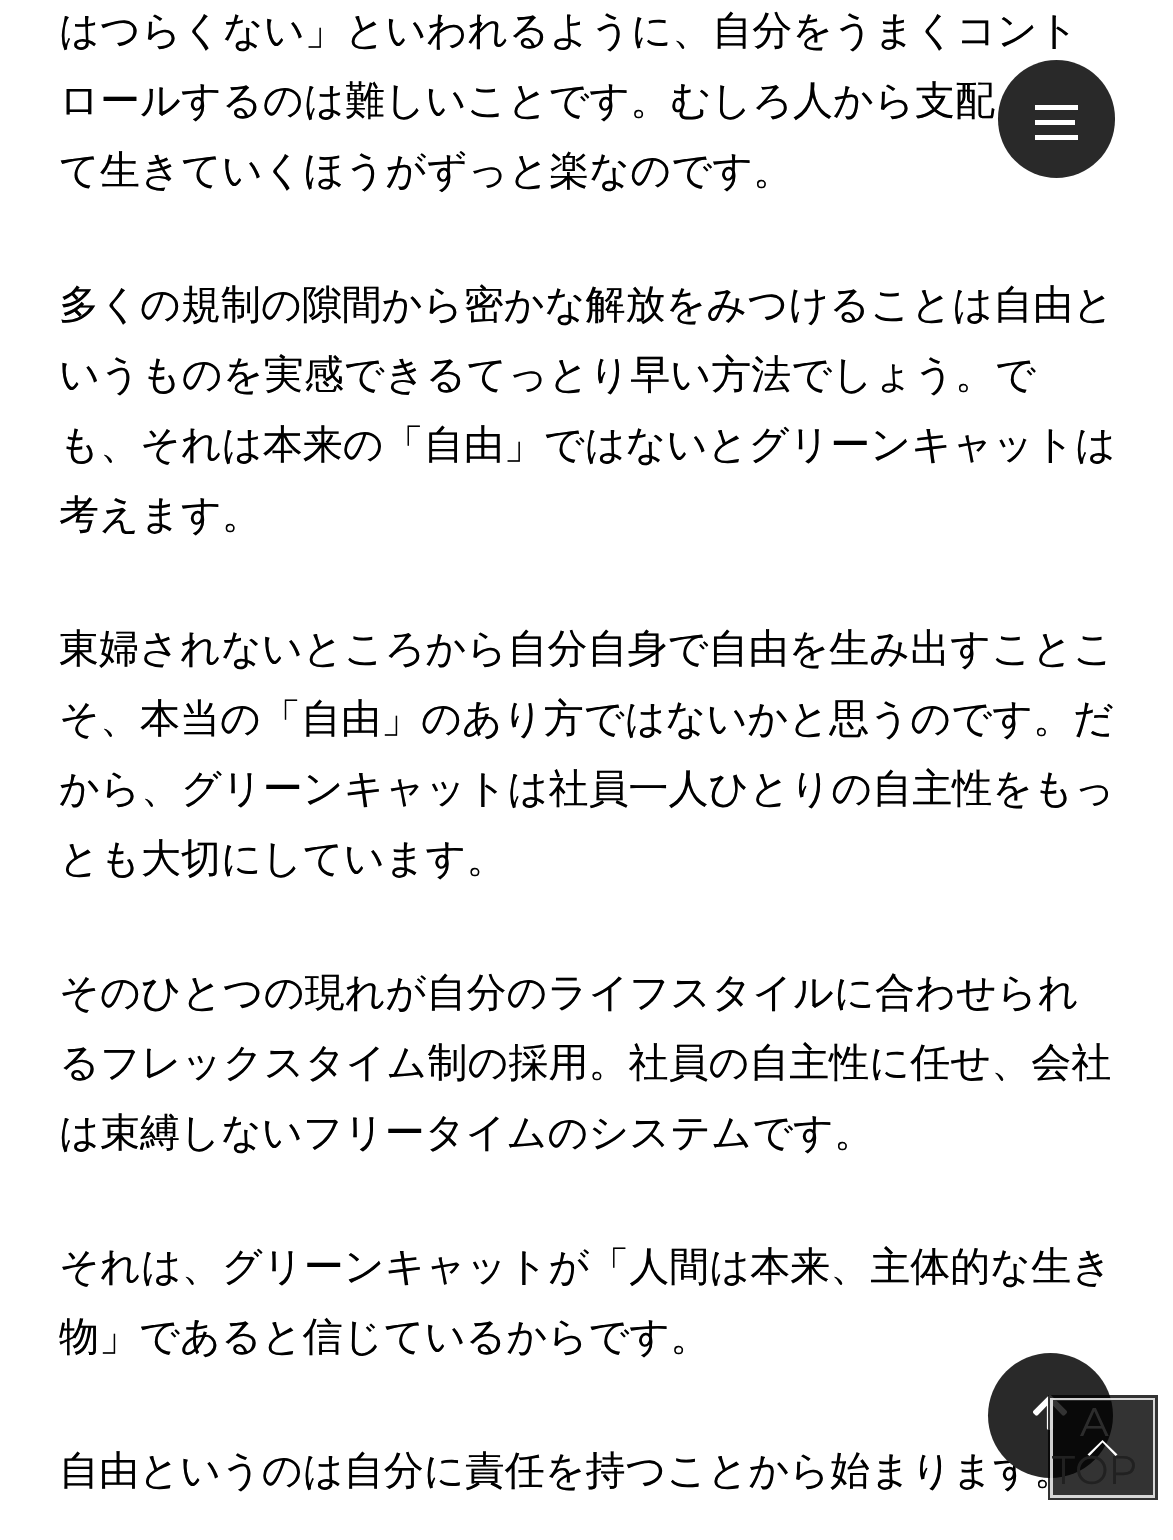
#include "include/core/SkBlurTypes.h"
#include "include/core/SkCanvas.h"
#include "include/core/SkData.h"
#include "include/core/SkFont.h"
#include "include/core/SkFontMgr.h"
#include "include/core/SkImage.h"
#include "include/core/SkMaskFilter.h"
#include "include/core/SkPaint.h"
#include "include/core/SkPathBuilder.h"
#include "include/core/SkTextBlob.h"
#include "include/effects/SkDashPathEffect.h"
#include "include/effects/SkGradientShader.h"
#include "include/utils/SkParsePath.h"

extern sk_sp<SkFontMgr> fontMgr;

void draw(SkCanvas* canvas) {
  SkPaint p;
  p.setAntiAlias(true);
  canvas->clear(SK_ColorWHITE);
  p.setColor(SkColorSetRGB(41, 41, 41));
  canvas->drawRoundRect(SkRect::MakeLTRB(998, 60, 1115, 178), 58.5f, 58.5f, p);
  p.setColor(SK_ColorWHITE);
  canvas->drawRect(SkRect::MakeLTRB(1035, 120, 1075, 125), p);
  canvas->drawRect(SkRect::MakeLTRB(1035, 105, 1078, 110), p);
  canvas->drawRect(SkRect::MakeLTRB(1035, 135, 1078, 140), p);
  SkFont font1(fontMgr->matchFamilyStyle("WenQuanYi Zen Hei", SkFontStyle(500, SkFontStyle::kNormal_Width, SkFontStyle::kUpright_Slant)), 40);
  font1.setSubpixel(true);
  p.setColor(SK_ColorBLACK);
  canvas->drawString("はつらくない」といわれるように、自分をうまくコント", 59, 44, font1, p);
  canvas->drawString("ロールするのは難しいことです。むしろ人から支配", 59, 114, font1, p);
  canvas->drawString("て生きていくほうがずっと楽なのです。", 59, 184, font1, p);
  canvas->drawString("多くの規制の隙間から密かな解放をみつけることは自由と", 59, 318, font1, p);
  canvas->drawString("いうものを実感できるてっとり早い方法でしょう。で", 59, 388, font1, p);
  canvas->drawString("も、それは本来の「自由」ではないとグリーンキャットは", 59, 458, font1, p);
  canvas->drawString("考えます。", 59, 528, font1, p);
  canvas->drawString("東婦されないところから自分自身で自由を生み出すことこ", 59, 662, font1, p);
  canvas->drawString("そ、本当の「自由」のあり方ではないかと思うのです。だ", 59, 732, font1, p);
  canvas->drawString("から、グリーンキャットは社員一人ひとりの自主性をもっ", 59, 802, font1, p);
  canvas->drawString("とも大切にしています。", 59, 872, font1, p);
  canvas->drawString("そのひとつの現れが自分のライフスタイルに合わせられ", 59, 1006, font1, p);
  canvas->drawString("るフレックスタイム制の採用。社員の自主性に任せ、会社", 59, 1076, font1, p);
  canvas->drawString("は束縛しないフリータイムのシステムです。", 59, 1146, font1, p);
  canvas->drawString("それは、グリーンキャットが「人間は本来、主体的な生き", 59, 1280, font1, p);
  canvas->drawString("物」であると信じているからです。", 59, 1350, font1, p);
  canvas->drawString("自由というのは自分に責任を持つことから始まります。", 59, 1484, font1, p);
  p.setColor(SkColorSetRGB(41, 41, 41));
  canvas->drawCircle(1050.5f, 1415.5f, 62.5f, p);
  canvas->drawImageRect(SkImages::DeferredFromEncodedData(SkData::MakeFromFileName("images/1.png")), SkRect::MakeLTRB(1033, 1395, 1067, 1430), SkSamplingOptions());
  p.setStyle(SkPaint::kStroke_Style);
  p.setStrokeWidth(5);
  p.setColor(SkColorSetARGB(204, 0, 0, 0));
  canvas->drawRect(SkRect::MakeLTRB(1050.5f, 1397.5f, 1155.5f, 1497.5f), p);
  p.setStrokeWidth(3);
  p.setColor(SkColorSetARGB(204, 255, 255, 255));
  canvas->drawRect(SkRect::MakeLTRB(1051.5f, 1399.5f, 1153.5f, 1496.5f), p);
  p.setStyle(SkPaint::kFill_Style);
  p.setColor(SkColorSetARGB(204, 0, 0, 0));
  canvas->drawRect(SkRect::MakeLTRB(1053, 1400, 1153, 1495), p);
  p.setColor(SK_ColorWHITE);
  canvas->drawPath(SkPathBuilder().moveTo(1117.5f, 1454.5f).lineTo(1115.5f, 1456).lineTo(1102.5f, 1442.5f).lineTo(1089.5f, 1456).lineTo(1087.5f, 1454.5f).lineTo(1102.5f, 1440).close().detach(), p);
  SkFont font2(fontMgr->matchFamilyStyle("Montserrat", SkFontStyle::Normal()), 40);
  font2.setSubpixel(true);
  p.setColor(SkColorSetRGB(44, 44, 44));
  canvas->drawString("A", 1080, 1436, font2, p);
  p.setColor(SkColorSetRGB(33, 33, 33));
  canvas->drawString("TOP", 1052, 1484, font2, p);
}
